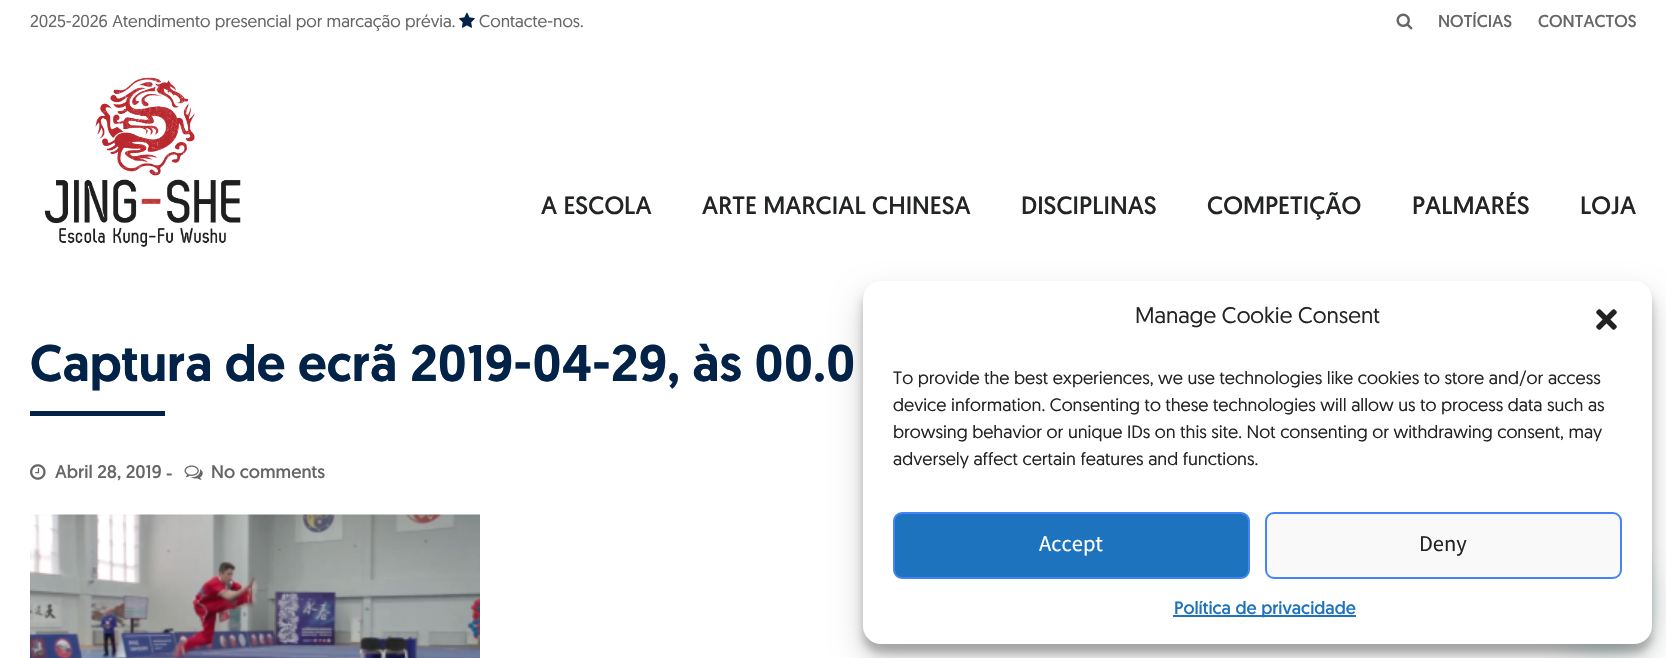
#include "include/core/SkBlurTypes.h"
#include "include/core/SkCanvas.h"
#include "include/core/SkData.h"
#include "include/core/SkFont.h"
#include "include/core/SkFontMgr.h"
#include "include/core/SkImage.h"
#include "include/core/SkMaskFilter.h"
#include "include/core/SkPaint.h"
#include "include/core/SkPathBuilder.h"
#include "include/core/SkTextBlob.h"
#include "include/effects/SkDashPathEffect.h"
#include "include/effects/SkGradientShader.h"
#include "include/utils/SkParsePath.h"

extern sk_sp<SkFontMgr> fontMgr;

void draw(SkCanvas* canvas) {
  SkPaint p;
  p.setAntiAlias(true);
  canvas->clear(SK_ColorWHITE);
  canvas->drawImageRect(SkImages::DeferredFromEncodedData(SkData::MakeFromFileName("images/1.png")), SkRect::MakeLTRB(459, 12, 475, 28), SkSamplingOptions());
  canvas->drawImageRect(SkImages::DeferredFromEncodedData(SkData::MakeFromFileName("images/2.png")), SkRect::MakeLTRB(1396, 13, 1413, 30), SkSamplingOptions());
  canvas->drawImageRect(SkImages::DeferredFromEncodedData(SkData::MakeFromFileName("images/3.png")), SkRect::MakeLTRB(44, 77, 241, 247), SkSamplingOptions());
  p.setColor(SkColorSetRGB(2, 35, 71));
  canvas->drawRect(SkRect::MakeLTRB(30, 411, 165, 416), p);
  canvas->drawImageRect(SkImages::DeferredFromEncodedData(SkData::MakeFromFileName("images/4.png")), SkRect::MakeLTRB(30, 464, 46, 480), SkSamplingOptions());
  canvas->drawImageRect(SkImages::DeferredFromEncodedData(SkData::MakeFromFileName("images/5.png")), SkRect::MakeLTRB(184, 465, 203, 480), SkSamplingOptions());
  canvas->drawImageRect(SkImages::DeferredFromEncodedData(SkData::MakeFromFileName("images/6.png")), SkRect::MakeLTRB(30, 514, 480, 658), SkSamplingOptions());
  p.setColor(SkColorSetARGB(59, 0, 0, 0));
  p.setMaskFilter(SkMaskFilter::MakeBlur(kNormal_SkBlurStyle, 4.5f));
  canvas->drawRoundRect(SkRect::MakeLTRB(863, 290, 1652, 653), 18, 18, p);
  p.setMaskFilter(nullptr);
  p.setColor(SkColorSetARGB(48, 0, 0, 0));
  p.setMaskFilter(SkMaskFilter::MakeBlur(kNormal_SkBlurStyle, 15));
  canvas->drawRoundRect(SkRect::MakeLTRB(863, 296, 1652, 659), 18, 18, p);
  p.setMaskFilter(nullptr);
  p.setColor(SkColorSetARGB(61, 7, 94, 84));
  p.setMaskFilter(SkMaskFilter::MakeBlur(kNormal_SkBlurStyle, 18));
  canvas->drawRoundRect(SkRect::MakeLTRB(1557, 557, 1647, 647), 45, 45, p);
  p.setMaskFilter(nullptr);
  p.setColor(SK_ColorWHITE);
  canvas->drawRoundRect(SkRect::MakeLTRB(863, 281, 1652, 644), 18, 18, p);
  canvas->drawImageRect(SkImages::DeferredFromEncodedData(SkData::MakeFromFileName("images/7.png")), SkRect::MakeLTRB(1596, 309, 1617, 330), SkSamplingOptions());
  p.setColor(SkColorSetRGB(30, 115, 190));
  canvas->drawRoundRect(SkRect::MakeLTRB(894, 513, 1249, 578), 8, 8, p);
  p.setStyle(SkPaint::kStroke_Style);
  p.setStrokeWidth(2);
  p.setColor(SkColorSetRGB(67, 133, 245));
  canvas->drawRoundRect(SkRect::MakeLTRB(894, 513, 1249, 578), 8, 8, p);
  p.setStyle(SkPaint::kFill_Style);
  p.setColor(SkColorSetRGB(249, 249, 249));
  canvas->drawRoundRect(SkRect::MakeLTRB(1266, 513, 1621, 578), 8, 8, p);
  p.setStyle(SkPaint::kStroke_Style);
  p.setColor(SkColorSetRGB(67, 133, 245));
  canvas->drawRoundRect(SkRect::MakeLTRB(1266, 513, 1621, 578), 8, 8, p);
  p.setStyle(SkPaint::kFill_Style);
  p.setColor(SkColorSetRGB(30, 115, 190));
  canvas->drawRect(SkRect::MakeLTRB(1173, 615, 1356, 617), p);
  SkFont font1(fontMgr->matchFamilyStyle("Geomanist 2", SkFontStyle::Normal()), 17.1f);
  font1.setSubpixel(true);
  p.setColor(SkColorSetRGB(102, 102, 102));
  canvas->drawString("2025-2026 Atendimento presencial por marcação prévia.", 30, 27, font1, p);
  canvas->drawString("Contacte-nos.", 479, 27, font1, p);
  SkFont font2(fontMgr->matchFamilyStyle("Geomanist", SkFontStyle::Normal()), 17.1f);
  font2.setSubpixel(true);
  canvas->drawString("NOTÍCIAS", 1438, 27, font2, p);
  canvas->drawString("CONTACTOS", 1538, 27, font2, p);
  SkFont font3(fontMgr->matchFamilyStyle("Geomanist", SkFontStyle::Normal()), 25);
  font3.setSubpixel(true);
  p.setColor(SkColorSetRGB(34, 36, 37));
  canvas->drawString("A ESCOLA", 541, 214, font3, p);
  canvas->drawString("ARTE MARCIAL CHINESA", 702, 214, font3, p);
  canvas->drawString("DISCIPLINAS", 1021, 214, font3, p);
  canvas->drawString("COMPETIÇÃO", 1207, 214, font3, p);
  canvas->drawString("PALMARÉS", 1412, 214, font3, p);
  canvas->drawString("LOJA", 1580, 214, font3, p);
  SkFont font4(fontMgr->matchFamilyStyle("Geomanist", SkFontStyle(500, SkFontStyle::kNormal_Width, SkFontStyle::kUpright_Slant)), 51.25f);
  font4.setSubpixel(true);
  p.setColor(SkColorSetRGB(2, 35, 71));
  canvas->drawString("Captura de ecrã 2019-04-29, às 00.0", 30, 381, font4, p);
  SkFont font5(fontMgr->matchFamilyStyle("Geomanist", SkFontStyle::Normal()), 18.25f);
  font5.setSubpixel(true);
  p.setColor(SkColorSetRGB(102, 102, 102));
  canvas->drawString("Abril 28, 2019", 55, 478, font5, p);
  canvas->drawString("-", 166, 480, font5, p);
  canvas->drawString("No comments", 211, 478, font5, p);
  SkFont font6(fontMgr->matchFamilyStyle("Geomanist 2", SkFontStyle::Normal()), 22.5f);
  font6.setSubpixel(true);
  p.setColor(SkColorSetRGB(34, 36, 37));
  canvas->drawString("Manage Cookie Consent", 1135, 323, font6, p);
  SkFont font7(fontMgr->matchFamilyStyle("Geomanist 2", SkFontStyle::Normal()), 18);
  font7.setSubpixel(true);
  canvas->drawString("To provide the best experiences, we use technologies like cookies to store and/or access", 893, 384, font7, p);
  canvas->drawString("device information. Consenting to these technologies will allow us to process data such as", 893, 411, font7, p);
  canvas->drawString("browsing behavior or unique IDs on this site. Not consenting or withdrawing consent, may", 893, 438, font7, p);
  canvas->drawString("adversely affect certain features and functions.", 893, 465, font7, p);
  SkFont font8(fontMgr->matchFamilyStyle("Source Sans Pro", SkFontStyle::Normal()), 22.5f);
  font8.setSubpixel(true);
  p.setColor(SK_ColorWHITE);
  canvas->drawString("Accept", 1039, 551, font8, p);
  p.setColor(SkColorSetRGB(34, 36, 37));
  canvas->drawString("Deny", 1419, 551, font8, p);
  SkFont font9(fontMgr->matchFamilyStyle("Geomanist", SkFontStyle::Normal()), 18);
  font9.setSubpixel(true);
  p.setColor(SkColorSetRGB(30, 115, 190));
  canvas->drawString("Política de privacidade", 1174, 614, font9, p);
}
